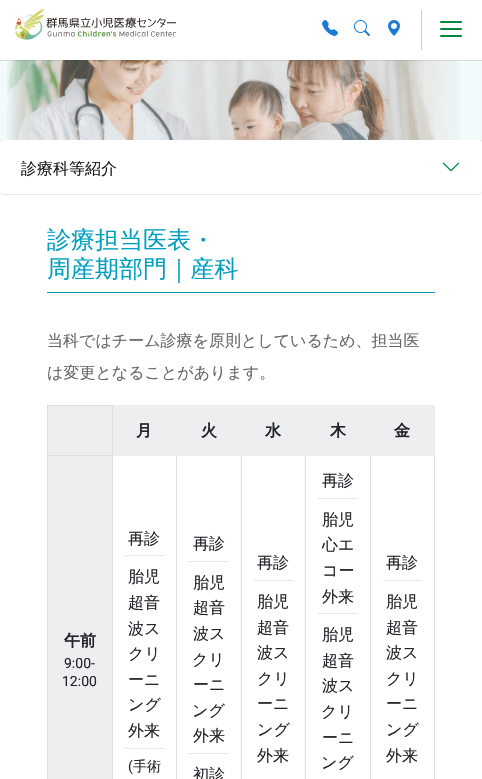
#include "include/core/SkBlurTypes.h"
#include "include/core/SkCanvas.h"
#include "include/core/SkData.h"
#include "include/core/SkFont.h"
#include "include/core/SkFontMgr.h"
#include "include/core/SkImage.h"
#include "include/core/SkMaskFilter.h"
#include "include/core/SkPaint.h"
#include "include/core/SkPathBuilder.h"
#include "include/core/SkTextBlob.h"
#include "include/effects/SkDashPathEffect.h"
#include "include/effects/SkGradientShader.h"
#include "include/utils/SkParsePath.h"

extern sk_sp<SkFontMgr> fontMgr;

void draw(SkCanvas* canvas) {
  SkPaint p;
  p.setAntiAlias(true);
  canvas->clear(SK_ColorWHITE);
  p.setColor(SkColorSetRGB(242, 250, 252));
  canvas->drawRect(SkRect::MakeLTRB(0, 60, 482, 140), p);
  canvas->drawImageRect(SkImages::DeferredFromEncodedData(SkData::MakeFromFileName("images/5.png")), SkRect::MakeLTRB(7, 60, 460, 140), SkSamplingOptions());
  p.setColor(SkColorSetARGB(26, 0, 0, 0));
  canvas->drawRect(SkRect::MakeLTRB(0, 60, 482, 61), p);
  canvas->drawImageRect(SkImages::DeferredFromEncodedData(SkData::MakeFromFileName("images/1.png")), SkRect::MakeLTRB(15, 9, 176, 40), SkSamplingOptions());
  canvas->drawImageRect(SkImages::DeferredFromEncodedData(SkData::MakeFromFileName("images/2.png")), SkRect::MakeLTRB(322, 20, 338, 36), SkSamplingOptions());
  canvas->drawImageRect(SkImages::DeferredFromEncodedData(SkData::MakeFromFileName("images/3.png")), SkRect::MakeLTRB(354, 20, 370, 36), SkSamplingOptions());
  canvas->drawImageRect(SkImages::DeferredFromEncodedData(SkData::MakeFromFileName("images/4.png")), SkRect::MakeLTRB(388, 20, 400, 36), SkSamplingOptions());
  p.setColor(SkColorSetRGB(204, 204, 204));
  canvas->drawRect(SkRect::MakeLTRB(421, 10, 422, 50), p);
  p.setColor(SkColorSetRGB(0, 135, 63));
  canvas->drawRoundRect(SkRect::MakeLTRB(440, 21, 462, 23), 1, 1, p);
  canvas->drawRoundRect(SkRect::MakeLTRB(440, 28, 462, 30), 1, 1, p);
  canvas->drawRoundRect(SkRect::MakeLTRB(440, 35, 462, 37), 1, 1, p);
  p.setColor(SkColorSetRGB(230, 230, 230));
  canvas->drawRect(SkRect::MakeLTRB(0, 140, 482, 141), p);
  canvas->drawPath(SkPathBuilder().moveTo(0, 190).cubicTo(0, 193, 1, 195, 4, 195).lineTo(478, 195).cubicTo(481, 195, 482, 193, 482, 190).cubicTo(482, 192, 480, 194, 478, 194).lineTo(4, 194).cubicTo(2, 194, 0, 192, 0, 190).close().detach(), p);
  p.setColor(SK_ColorWHITE);
  canvas->drawRoundRect(SkRect::MakeLTRB(0, 140, 482, 194), 4, 4, p);
  canvas->drawImageRect(SkImages::DeferredFromEncodedData(SkData::MakeFromFileName("images/6.png")), SkRect::MakeLTRB(442, 162, 460, 172), SkSamplingOptions());
  p.setColor(SkColorSetRGB(0, 159, 191));
  canvas->drawRect(SkRect::MakeLTRB(47, 292, 435, 293), p);
  p.setColor(SkColorSetRGB(221, 221, 221));
  canvas->drawRect(SkRect::MakeLTRB(112, 455, 113, 779), p);
  canvas->drawRect(SkRect::MakeLTRB(47, 455, 48, 779), p);
  p.setColor(SkColorSetRGB(236, 238, 239));
  canvas->drawRect(SkRect::MakeLTRB(47.5f, 405.5f, 112.5f, 455.5f), p);
  p.setStyle(SkPaint::kStroke_Style);
  p.setStrokeWidth(1);
  p.setColor(SkColorSetRGB(221, 221, 221));
  canvas->drawRect(SkRect::MakeLTRB(47.5f, 405.5f, 112.5f, 455.5f), p);
  p.setStyle(SkPaint::kFill_Style);
  canvas->drawRect(SkRect::MakeLTRB(176, 455, 177, 779), p);
  canvas->drawRect(SkRect::MakeLTRB(241, 455, 242, 779), p);
  canvas->drawRect(SkRect::MakeLTRB(305, 455, 306, 779), p);
  canvas->drawRect(SkRect::MakeLTRB(370, 455, 371, 779), p);
  canvas->drawRect(SkRect::MakeLTRB(434, 455, 435, 779), p);
  p.setColor(SkColorSetRGB(236, 238, 239));
  canvas->drawRect(SkRect::MakeLTRB(113, 405, 435, 456), p);
  canvas->drawRect(SkRect::MakeLTRB(48, 456, 112, 779), p);
  p.setColor(SkColorSetRGB(230, 230, 230));
  canvas->drawRect(SkRect::MakeLTRB(125, 555, 164, 556), p);
  canvas->drawRect(SkRect::MakeLTRB(125, 748, 164, 749), p);
  canvas->drawRect(SkRect::MakeLTRB(189, 561, 229, 562), p);
  canvas->drawRect(SkRect::MakeLTRB(189, 753, 229, 754), p);
  canvas->drawRect(SkRect::MakeLTRB(254, 580, 293, 581), p);
  canvas->drawRect(SkRect::MakeLTRB(318, 498, 358, 499), p);
  canvas->drawRect(SkRect::MakeLTRB(318, 613, 358, 614), p);
  canvas->drawRect(SkRect::MakeLTRB(383, 580, 422, 581), p);
  SkFont font1(fontMgr->matchFamilyStyle("WenQuanYi Zen Hei", SkFontStyle(500, SkFontStyle::kNormal_Width, SkFontStyle::kUpright_Slant)), 16);
  font1.setSubpixel(true);
  p.setColor(SkColorSetRGB(26, 26, 26));
  canvas->drawString("診療科等紹介", 21, 174, font1, p);
  SkFont font2(fontMgr->matchFamilyStyle("WenQuanYi Zen Hei", SkFontStyle(500, SkFontStyle::kNormal_Width, SkFontStyle::kUpright_Slant)), 24);
  font2.setSubpixel(true);
  p.setColor(SkColorSetRGB(0, 159, 191));
  canvas->drawString("診療担当医表・", 47, 248, font2, p);
  canvas->drawString("周産期部門｜産科", 47, 277, font2, p);
  p.setColor(SkColorSetRGB(102, 102, 102));
  canvas->drawString("当科ではチーム診療を原則としているため、担当医", 47, 346, font1, p);
  canvas->drawString("は変更となることがあります。", 47, 378, font1, p);
  SkFont font3(fontMgr->matchFamilyStyle("WenQuanYi Zen Hei", SkFontStyle::Bold()), 16);
  font3.setSubpixel(true);
  p.setColor(SkColorSetRGB(33, 37, 41));
  canvas->drawString("月", 136, 436, font3, p);
  canvas->drawString("火", 201, 436, font3, p);
  canvas->drawString("水", 265, 436, font3, p);
  canvas->drawString("木", 330, 436, font3, p);
  canvas->drawString("金", 394, 436, font3, p);
  canvas->drawString("午前", 64, 646, font3, p);
  SkFont font4(fontMgr->matchFamilyStyle("Roboto", SkFontStyle::Normal()), 14);
  font4.setSubpixel(true);
  canvas->drawString("9:00-", 64, 668, font4, p);
  canvas->drawString("12:00", 62, 686, font4, p);
  canvas->drawString("再診", 128, 544, font1, p);
  canvas->drawString("胎児", 128, 582, font1, p);
  canvas->drawString("超音", 128, 608, font1, p);
  canvas->drawString("波ス", 128, 634, font1, p);
  canvas->drawString("クリ", 128, 659, font1, p);
  canvas->drawString("ーニ", 128, 685, font1, p);
  canvas->drawString("ング", 128, 710, font1, p);
  canvas->drawString("外来", 128, 736, font1, p);
  canvas->drawString("(", 128, 771, font4, p);
  SkFont font5(fontMgr->matchFamilyStyle("WenQuanYi Zen Hei", SkFontStyle(500, SkFontStyle::kNormal_Width, SkFontStyle::kUpright_Slant)), 14);
  font5.setSubpixel(true);
  canvas->drawString("手術", 133, 771, font5, p);
  canvas->drawString("再診", 193, 549, font1, p);
  canvas->drawString("胎児", 193, 588, font1, p);
  canvas->drawString("超音", 193, 613, font1, p);
  canvas->drawString("波ス", 193, 639, font1, p);
  canvas->drawString("クリ", 192, 665, font1, p);
  canvas->drawString("ーニ", 193, 690, font1, p);
  canvas->drawString("ング", 192, 716, font1, p);
  canvas->drawString("外来", 193, 741, font1, p);
  canvas->drawString("初診", 193, 780, font1, p);
  canvas->drawString("再診", 257, 568, font1, p);
  canvas->drawString("胎児", 257, 607, font1, p);
  canvas->drawString("超音", 257, 633, font1, p);
  canvas->drawString("波ス", 257, 658, font1, p);
  canvas->drawString("クリ", 257, 684, font1, p);
  canvas->drawString("ーニ", 257, 709, font1, p);
  canvas->drawString("ング", 257, 735, font1, p);
  canvas->drawString("外来", 257, 761, font1, p);
  canvas->drawString("再診", 322, 486, font1, p);
  canvas->drawString("胎児", 322, 525, font1, p);
  canvas->drawString("心エ", 322, 550, font1, p);
  canvas->drawString("コー", 322, 576, font1, p);
  canvas->drawString("外来", 322, 602, font1, p);
  canvas->drawString("胎児", 322, 640, font1, p);
  canvas->drawString("超音", 322, 666, font1, p);
  canvas->drawString("波ス", 322, 691, font1, p);
  canvas->drawString("クリ", 321, 717, font1, p);
  canvas->drawString("ーニ", 322, 743, font1, p);
  canvas->drawString("ング", 321, 768, font1, p);
  canvas->drawString("再診", 386, 568, font1, p);
  canvas->drawString("胎児", 386, 607, font1, p);
  canvas->drawString("超音", 386, 633, font1, p);
  canvas->drawString("波ス", 386, 658, font1, p);
  canvas->drawString("クリ", 386, 684, font1, p);
  canvas->drawString("ーニ", 386, 709, font1, p);
  canvas->drawString("ング", 386, 735, font1, p);
  canvas->drawString("外来", 386, 761, font1, p);
}
